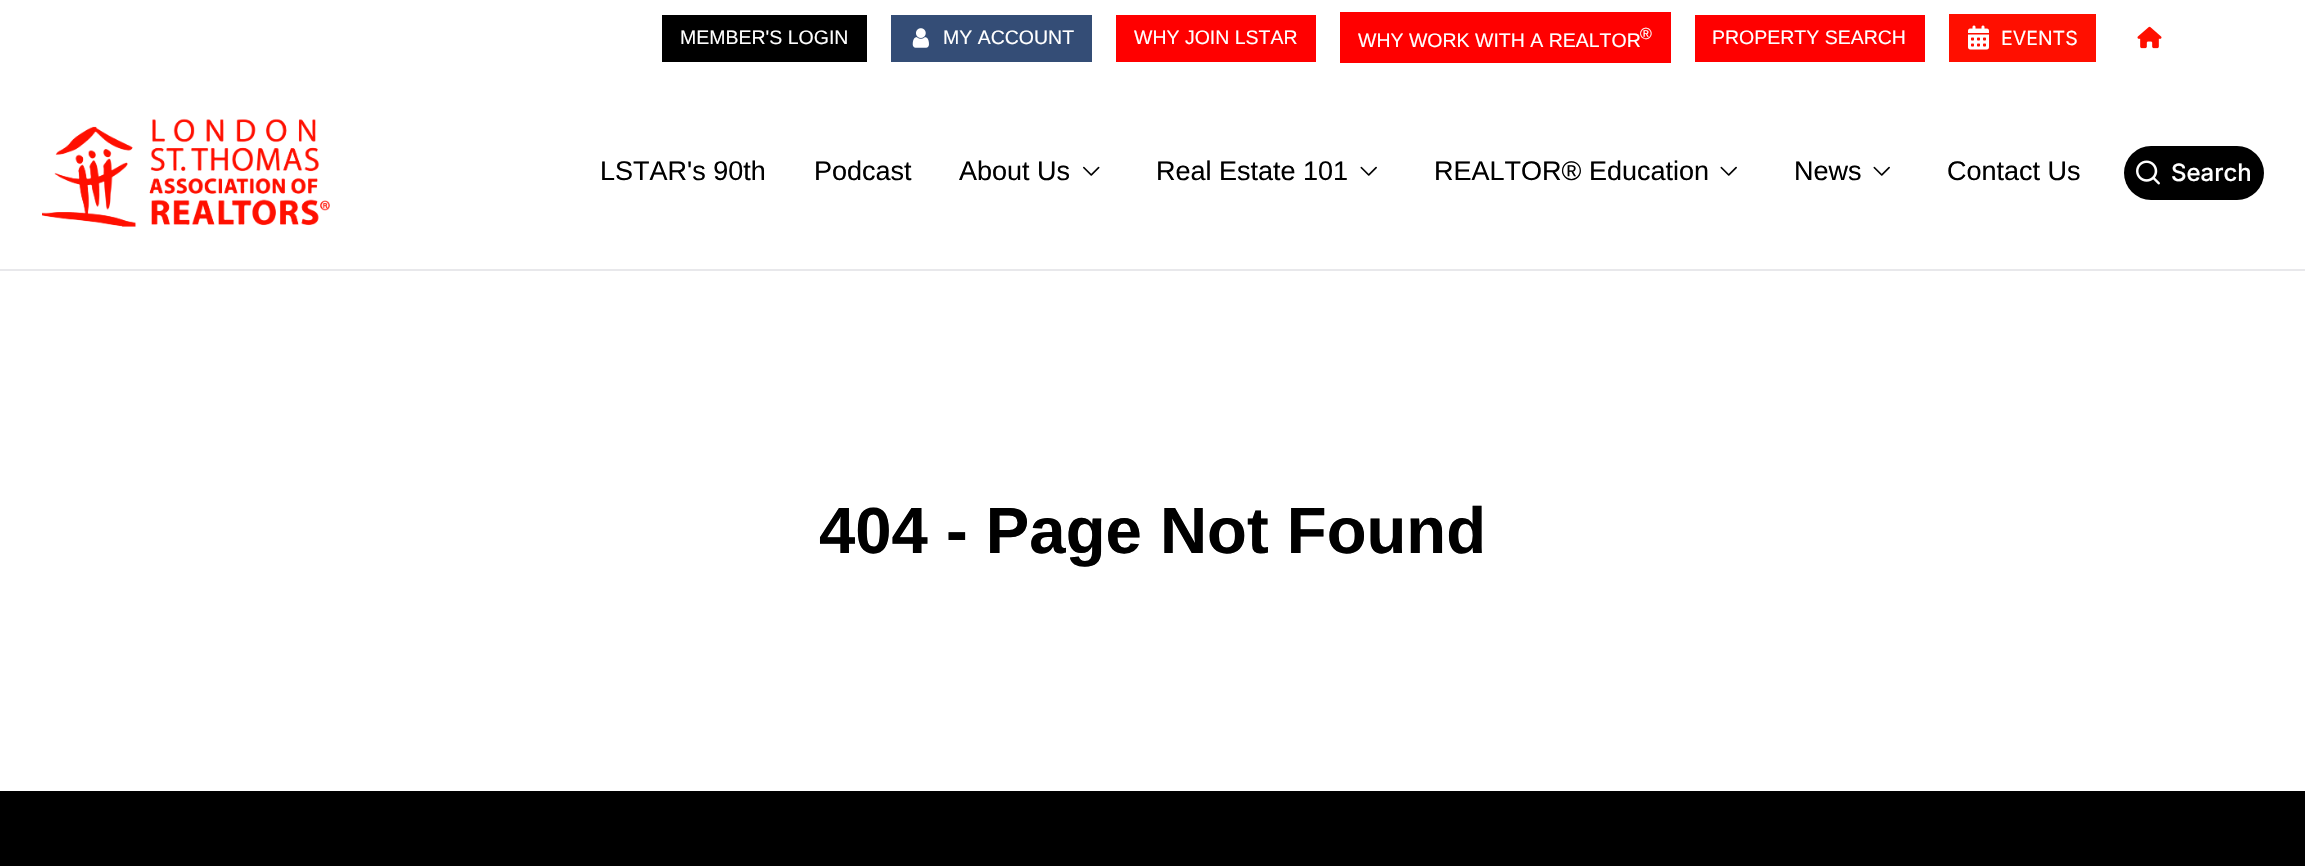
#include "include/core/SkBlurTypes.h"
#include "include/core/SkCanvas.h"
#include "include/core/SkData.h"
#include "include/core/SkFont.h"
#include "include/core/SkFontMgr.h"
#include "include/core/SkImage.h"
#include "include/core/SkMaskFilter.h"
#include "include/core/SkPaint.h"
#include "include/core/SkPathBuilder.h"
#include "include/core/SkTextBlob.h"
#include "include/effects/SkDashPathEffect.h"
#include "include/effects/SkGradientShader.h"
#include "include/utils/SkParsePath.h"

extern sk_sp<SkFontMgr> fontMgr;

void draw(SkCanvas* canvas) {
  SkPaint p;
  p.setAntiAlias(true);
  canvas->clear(SK_ColorWHITE);
  p.setColor(SK_ColorBLACK);
  canvas->drawRect(SkRect::MakeLTRB(662, 15, 867, 62), p);
  p.setColor(SkColorSetRGB(52, 77, 118));
  canvas->drawRect(SkRect::MakeLTRB(891, 15, 1092, 62), p);
  canvas->drawImageRect(SkImages::DeferredFromEncodedData(SkData::MakeFromFileName("images/1.png")), SkRect::MakeLTRB(912, 28, 929, 48), SkSamplingOptions());
  p.setColor(SkColorSetRGB(255, 0, 0));
  canvas->drawRect(SkRect::MakeLTRB(1116, 15, 1316, 62), p);
  canvas->drawRect(SkRect::MakeLTRB(1340, 12, 1671, 63), p);
  canvas->drawRect(SkRect::MakeLTRB(1695, 15, 1925, 62), p);
  p.setColor(SkColorSetRGB(255, 15, 0));
  canvas->drawRect(SkRect::MakeLTRB(1949, 14, 2096, 62), p);
  canvas->drawImageRect(SkImages::DeferredFromEncodedData(SkData::MakeFromFileName("images/2.png")), SkRect::MakeLTRB(1968, 25, 1989, 50), SkSamplingOptions());
  canvas->drawImageRect(SkImages::DeferredFromEncodedData(SkData::MakeFromFileName("images/3.png")), SkRect::MakeLTRB(2137, 26, 2162, 49), SkSamplingOptions());
  p.setColor(SkColorSetRGB(232, 232, 235));
  canvas->drawRect(SkRect::MakeLTRB(0, 269, 2305, 271), p);
  canvas->drawImageRect(SkImages::DeferredFromEncodedData(SkData::MakeFromFileName("images/4.png")), SkRect::MakeLTRB(42, 118, 330, 227), SkSamplingOptions());
  canvas->drawImageRect(SkImages::DeferredFromEncodedData(SkData::MakeFromFileName("images/5.png")), SkRect::MakeLTRB(1083, 166, 1100, 176), SkSamplingOptions());
  canvas->drawImageRect(SkImages::DeferredFromEncodedData(SkData::MakeFromFileName("images/6.png")), SkRect::MakeLTRB(1360, 166, 1377, 176), SkSamplingOptions());
  canvas->drawImageRect(SkImages::DeferredFromEncodedData(SkData::MakeFromFileName("images/6.png")), SkRect::MakeLTRB(1720, 166, 1737, 176), SkSamplingOptions());
  canvas->drawImageRect(SkImages::DeferredFromEncodedData(SkData::MakeFromFileName("images/6.png")), SkRect::MakeLTRB(1873, 166, 1890, 176), SkSamplingOptions());
  p.setColor(SK_ColorBLACK);
  canvas->drawRoundRect(SkRect::MakeLTRB(2124, 146, 2264, 200), 27, 27, p);
  canvas->drawImageRect(SkImages::DeferredFromEncodedData(SkData::MakeFromFileName("images/7.png")), SkRect::MakeLTRB(2136, 160, 2160, 185), SkSamplingOptions());
  canvas->drawRect(SkRect::MakeLTRB(0, 791, 2305, 866), p);
  SkFont font1(fontMgr->matchFamilyStyle("Arimo", SkFontStyle::Normal()), 19.5f);
  font1.setSubpixel(true);
  p.setColor(SK_ColorWHITE);
  canvas->drawString("MEMBER'S LOGIN", 680, 44, font1, p);
  canvas->drawString("MY ACCOUNT", 943, 44, font1, p);
  canvas->drawString("WHY JOIN LSTAR", 1134, 44, font1, p);
  canvas->drawString("WHY WORK WITH A REALTOR", 1358, 47, font1, p);
  SkFont font2(fontMgr->matchFamilyStyle("Arimo", SkFontStyle::Normal()), 16);
  font2.setSubpixel(true);
  canvas->drawString("®", 1640, 39, font2, p);
  canvas->drawString("PROPERTY SEARCH", 1712, 44, font1, p);
  SkFont font3(fontMgr->matchFamilyStyle("Inter", SkFontStyle::Normal()), 19.5f);
  font3.setSubpixel(true);
  canvas->drawString("EVENTS", 2001, 45, font3, p);
  SkFont font4(fontMgr->matchFamilyStyle("Arimo", SkFontStyle::Normal()), 27);
  font4.setSubpixel(true);
  p.setColor(SK_ColorBLACK);
  canvas->drawString("LSTAR's 90th", 600, 180, font4, p);
  canvas->drawString("Podcast", 814, 180, font4, p);
  canvas->drawString("About Us", 959, 180, font4, p);
  canvas->drawString("Real Estate 101", 1156, 180, font4, p);
  canvas->drawString("REALTOR® Education", 1434, 180, font4, p);
  canvas->drawString("News", 1794, 180, font4, p);
  canvas->drawString("Contact Us", 1947, 180, font4, p);
  SkFont font5(fontMgr->matchFamilyStyle("Inter", SkFontStyle(500, SkFontStyle::kNormal_Width, SkFontStyle::kUpright_Slant)), 24);
  font5.setSubpixel(true);
  p.setColor(SK_ColorWHITE);
  canvas->drawString("Search", 2171, 181, font5, p);
  SkFont font6(fontMgr->matchFamilyStyle("Arimo", SkFontStyle::Bold()), 65.25f);
  font6.setSubpixel(true);
  p.setColor(SK_ColorBLACK);
  canvas->drawString("404 - Page Not Found", 819, 553, font6, p);
}
